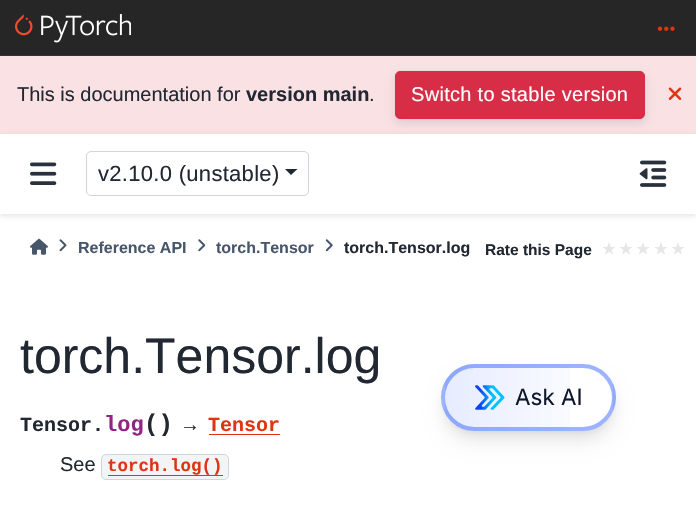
#include "include/core/SkBlurTypes.h"
#include "include/core/SkCanvas.h"
#include "include/core/SkData.h"
#include "include/core/SkFont.h"
#include "include/core/SkFontMgr.h"
#include "include/core/SkImage.h"
#include "include/core/SkMaskFilter.h"
#include "include/core/SkPaint.h"
#include "include/core/SkPathBuilder.h"
#include "include/core/SkTextBlob.h"
#include "include/effects/SkDashPathEffect.h"
#include "include/effects/SkGradientShader.h"
#include "include/utils/SkParsePath.h"

extern sk_sp<SkFontMgr> fontMgr;

void draw(SkCanvas* canvas) {
  SkPaint p;
  p.setAntiAlias(true);
  auto spacedText = [&](const char* s, float x, float y, const SkFont& font, const SkPaint& ink, float letter, float word) {
    std::vector<SkGlyphID> glyphs(font.countText(s, strlen(s), SkTextEncoding::kUTF8));
    std::vector<float> xs(glyphs.size());
    font.textToGlyphs(s, strlen(s), SkTextEncoding::kUTF8, glyphs);
    font.getXPos(glyphs, xs, x);
    float extra = 0;
    for (size_t i = 0; i < glyphs.size(); i++) {
      xs[i] += extra;
      extra += letter + word * (glyphs[i] == font.unicharToGlyph(' '));
    }
    canvas->drawTextBlob(SkTextBlob::MakeFromPosHGlyphs(glyphs, xs, y, font), 0, 0, ink);
  };
  canvas->clear(SK_ColorWHITE);
  p.setColor(SkColorSetRGB(38, 38, 38));
  canvas->drawRect(SkRect::MakeLTRB(0, 0, 696, 55), p);
  p.setColor(SkColorSetRGB(51, 51, 51));
  canvas->drawRect(SkRect::MakeLTRB(0, 55, 696, 56), p);
  canvas->drawImageRect(SkImages::DeferredFromEncodedData(SkData::MakeFromFileName("images/1.png")), SkRect::MakeLTRB(15, 14, 131, 43), SkSamplingOptions());
  canvas->drawImageRect(SkImages::DeferredFromEncodedData(SkData::MakeFromFileName("images/2.png")), SkRect::MakeLTRB(657, 26, 675, 31), SkSamplingOptions());
  p.setColor(SkColorSetRGB(249, 225, 228));
  canvas->drawRect(SkRect::MakeLTRB(0, 56, 696, 134), p);
  p.setColor(SkColorSetARGB(26, 0, 0, 0));
  p.setMaskFilter(SkMaskFilter::MakeBlur(kNormal_SkBlurStyle, 0.5f));
  canvas->drawRoundRect(SkRect::MakeLTRB(395, 71, 645, 119), 5, 5, p);
  p.setMaskFilter(nullptr);
  p.setMaskFilter(SkMaskFilter::MakeBlur(kNormal_SkBlurStyle, 5));
  canvas->drawRoundRect(SkRect::MakeLTRB(395, 75, 645, 123), 5, 5, p);
  p.setMaskFilter(nullptr);
  p.setColor(SkColorSetRGB(215, 45, 71));
  canvas->drawRoundRect(SkRect::MakeLTRB(395.5f, 71.5f, 644.5f, 118.5f), 4.5f, 4.5f, p);
  p.setStyle(SkPaint::kStroke_Style);
  p.setStrokeWidth(1);
  canvas->drawRoundRect(SkRect::MakeLTRB(395.5f, 71.5f, 644.5f, 118.5f), 4.5f, 4.5f, p);
  canvas->drawImageRect(SkImages::DeferredFromEncodedData(SkData::MakeFromFileName("images/3.png")), SkRect::MakeLTRB(668, 87, 682, 100), SkSamplingOptions());
  p.setStyle(SkPaint::kFill_Style);
  p.setColor(SkColorSetARGB(26, 0, 0, 0));
  p.setMaskFilter(SkMaskFilter::MakeBlur(kNormal_SkBlurStyle, 2.5f));
  canvas->drawRect(SkRect::MakeLTRB(0, 136, 696, 216), p);
  p.setMaskFilter(nullptr);
  p.setColor(SK_ColorWHITE);
  canvas->drawRect(SkRect::MakeLTRB(0, 134, 696, 214), p);
  canvas->drawImageRect(SkImages::DeferredFromEncodedData(SkData::MakeFromFileName("images/4.png")), SkRect::MakeLTRB(30, 162, 57, 185), SkSamplingOptions());
  p.setStyle(SkPaint::kStroke_Style);
  p.setColor(SkColorSetRGB(209, 213, 218));
  canvas->drawRoundRect(SkRect::MakeLTRB(86.5f, 151.5f, 308.5f, 195.5f), 4.5f, 4.5f, p);
  p.setStyle(SkPaint::kFill_Style);
  p.setColor(SkColorSetRGB(34, 40, 50));
  canvas->drawPath(SkPathBuilder().moveTo(285, 169).lineTo(297.5f, 169).lineTo(291, 175).close().detach(), p);
  canvas->drawImageRect(SkImages::DeferredFromEncodedData(SkData::MakeFromFileName("images/5.png")), SkRect::MakeLTRB(639, 160, 667, 187), SkSamplingOptions());
  canvas->drawImageRect(SkImages::DeferredFromEncodedData(SkData::MakeFromFileName("images/6.png")), SkRect::MakeLTRB(30, 238, 48, 255), SkSamplingOptions());
  canvas->drawImageRect(SkImages::DeferredFromEncodedData(SkData::MakeFromFileName("images/7.png")), SkRect::MakeLTRB(59, 239, 67, 252), SkSamplingOptions());
  canvas->drawImageRect(SkImages::DeferredFromEncodedData(SkData::MakeFromFileName("images/8.png")), SkRect::MakeLTRB(198, 239, 206, 252), SkSamplingOptions());
  canvas->drawImageRect(SkImages::DeferredFromEncodedData(SkData::MakeFromFileName("images/9.png")), SkRect::MakeLTRB(325, 239, 333, 252), SkSamplingOptions());
  p.setColor(SkColorSetRGB(222, 52, 18));
  canvas->drawRect(SkRect::MakeLTRB(209, 434, 280, 435), p);
  p.setColor(SkColorSetRGB(243, 244, 245));
  canvas->drawRoundRect(SkRect::MakeLTRB(101.5f, 454.5f, 228.5f, 479.5f), 4.5f, 4.5f, p);
  p.setStyle(SkPaint::kStroke_Style);
  p.setColor(SkColorSetRGB(209, 213, 218));
  canvas->drawRoundRect(SkRect::MakeLTRB(101.5f, 454.5f, 228.5f, 479.5f), 4.5f, 4.5f, p);
  p.setStyle(SkPaint::kFill_Style);
  p.setColor(SkColorSetRGB(222, 52, 18));
  canvas->drawRect(SkRect::MakeLTRB(108, 475, 223, 476), p);
  p.setColor(SkColorSetARGB(26, 0, 0, 0));
  p.setMaskFilter(SkMaskFilter::MakeBlur(kNormal_SkBlurStyle, 4));
  canvas->drawRoundRect(SkRect::MakeLTRB(446, 374, 611, 431), 28.5f, 28.5f, p);
  p.setMaskFilter(nullptr);
  p.setMaskFilter(SkMaskFilter::MakeBlur(kNormal_SkBlurStyle, 9.5f));
  canvas->drawRoundRect(SkRect::MakeLTRB(445, 380, 613, 440), 30, 30, p);
  p.setMaskFilter(nullptr);
  p.setColor(SK_ColorWHITE);
  canvas->drawRoundRect(SkRect::MakeLTRB(441, 364, 616, 431), 33.5f, 33.5f, p);
  canvas->save();
  canvas->clipPath(SkPathBuilder().moveTo(474.5f, 364).lineTo(582.5f, 364).cubicTo(601, 364, 616, 379, 616, 397.5f).cubicTo(616, 416, 601, 431, 582.5f, 431).lineTo(474.5f, 431).cubicTo(456, 431, 441, 416, 441, 397.5f).cubicTo(441, 379, 456, 364, 474.5f, 364).close().detach(), true);
  {
    const SkColor colors[] = {SkColorSetARGB(26, 10, 64, 255), SkColorSetARGB(0, 10, 64, 255)};
    const float stops[] = {0, 0.95f};
    const SkPoint ends[] = {{445, 398}, {613, 398}};
    p.setShader(SkGradientShader::MakeLinear(ends, colors, stops, 2, SkTileMode::kClamp));
    p.setAlpha(255);
  }
  canvas->drawRect(SkRect::MakeLTRB(445, 364, 570, 431), p);
  {
    const SkColor colors[] = {SkColorSetRGB(230, 236, 255), SK_ColorWHITE};
    const float stops[] = {0, 0.95f};
    const SkPoint ends[] = {{613, 398}, {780, 398}};
    p.setShader(SkGradientShader::MakeLinear(ends, colors, stops, 2, SkTileMode::kClamp));
    p.setAlpha(255);
  }
  canvas->drawRect(SkRect::MakeLTRB(613, 384, 616, 411), p);
  canvas->restore();
  p.setStyle(SkPaint::kStroke_Style);
  p.setStrokeWidth(4);
  p.setShader(nullptr);
  p.setColor(SkColorSetARGB(102, 10, 64, 255));
  canvas->drawRoundRect(SkRect::MakeLTRB(443, 366, 614, 429), 31.5f, 31.5f, p);
  canvas->drawImageRect(SkImages::DeferredFromEncodedData(SkData::MakeFromFileName("images/10.png")), SkRect::MakeLTRB(475, 385, 505, 410), SkSamplingOptions());
  SkFont font1(fontMgr->matchFamilyStyle("Liberation Sans", SkFontStyle::Normal()), 20);
  font1.setSubpixel(true);
  p.setStyle(SkPaint::kFill_Style);
  p.setColor(SkColorSetRGB(34, 40, 50));
  canvas->drawString("This is documentation for", 17, 101, font1, p);
  SkFont font2(fontMgr->matchFamilyStyle("Liberation Sans", SkFontStyle::Bold()), 20);
  font2.setSubpixel(true);
  canvas->drawString("version main", 246, 101, font2, p);
  canvas->drawString(".", 369, 101, font1, p);
  p.setColor(SK_ColorWHITE);
  spacedText("Switch to stable version", 411, 101, font1, p, 0.3f, 0);
  SkFont font3(fontMgr->matchFamilyStyle("Liberation Sans", SkFontStyle::Normal()), 22);
  font3.setSubpixel(true);
  p.setColor(SkColorSetRGB(34, 40, 50));
  spacedText("v2.10.0 (unstable)", 98, 181, font3, p, 0.3f, 0);
  SkFont font4(fontMgr->matchFamilyStyle("Liberation Sans", SkFontStyle::Bold()), 16);
  font4.setSubpixel(true);
  p.setColor(SkColorSetRGB(72, 86, 107));
  canvas->drawString("Reference API", 78, 253, font4, p);
  canvas->drawString("torch.Tensor", 216, 253, font4, p);
  p.setColor(SkColorSetRGB(34, 40, 50));
  canvas->drawString("torch.Tensor.log", 344, 253, font4, p);
  SkFont font5(fontMgr->matchFamilyStyle("Liberation Sans", SkFontStyle::Bold()), 15.5f);
  font5.setSubpixel(true);
  canvas->drawString("Rate this Page", 485, 255, font5, p);
  SkFont font6(fontMgr->matchFamilyStyle("DejaVu Sans", SkFontStyle::Bold()), 15);
  font6.setSubpixel(true);
  p.setColor(SkColorSetRGB(230, 230, 230));
  canvas->drawString("★", 602, 254, font6, p);
  canvas->drawString("★", 619, 254, font6, p);
  canvas->drawString("★", 636, 254, font6, p);
  canvas->drawString("★", 654, 254, font6, p);
  canvas->drawString("★", 671, 254, font6, p);
  SkFont font7(fontMgr->matchFamilyStyle("Liberation Sans", SkFontStyle::Normal()), 50);
  font7.setSubpixel(true);
  p.setColor(SkColorSetRGB(34, 40, 50));
  canvas->drawString("torch.Tensor.log", 20, 373, font7, p);
  SkFont font8(fontMgr->matchFamilyStyle("Liberation Mono", SkFontStyle::Bold()), 20);
  font8.setSubpixel(true);
  canvas->drawString("Tensor.", 20, 431, font8, p);
  SkFont font9(fontMgr->matchFamilyStyle("Liberation Mono", SkFontStyle::Bold()), 22);
  font9.setSubpixel(true);
  p.setColor(SkColorSetRGB(145, 37, 131));
  canvas->drawString("log", 104, 431, font9, p);
  SkFont font10(fontMgr->matchFamilyStyle("Liberation Mono", SkFontStyle::Bold()), 24);
  font10.setSubpixel(true);
  p.setColor(SkColorSetRGB(34, 40, 50));
  canvas->drawString("()", 144, 431, font10, p);
  canvas->drawString("→", 184, 431, font8, p);
  p.setColor(SkColorSetRGB(222, 52, 18));
  canvas->drawString("Tensor", 208, 431, font8, p);
  p.setColor(SkColorSetRGB(34, 40, 50));
  canvas->drawString("See", 60, 471, font1, p);
  SkFont font11(fontMgr->matchFamilyStyle("Liberation Mono", SkFontStyle::Bold()), 17.5f);
  font11.setSubpixel(true);
  p.setColor(SkColorSetRGB(222, 52, 18));
  canvas->drawString("torch.log()", 107, 471, font11, p);
  SkFont font12(fontMgr->matchFamilyStyle("Inter", SkFontStyle::Normal()), 22.5f);
  font12.setSubpixel(true);
  p.setColor(SkColorSetRGB(15, 23, 42));
  canvas->drawString("Ask AI", 515, 405, font12, p);
}
